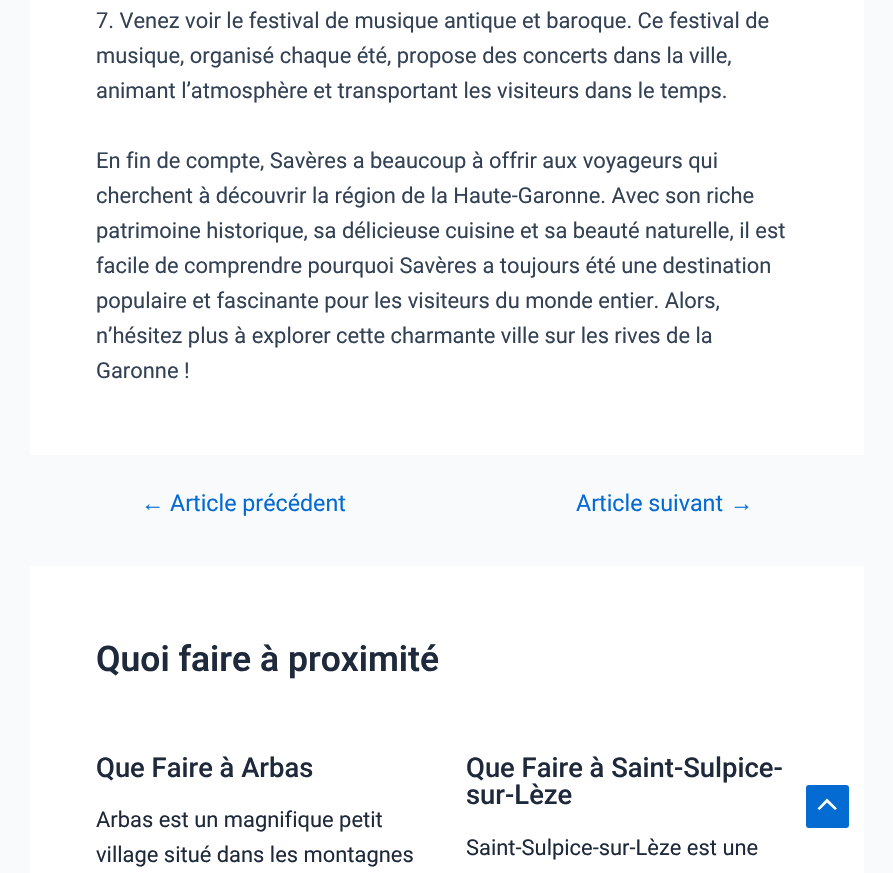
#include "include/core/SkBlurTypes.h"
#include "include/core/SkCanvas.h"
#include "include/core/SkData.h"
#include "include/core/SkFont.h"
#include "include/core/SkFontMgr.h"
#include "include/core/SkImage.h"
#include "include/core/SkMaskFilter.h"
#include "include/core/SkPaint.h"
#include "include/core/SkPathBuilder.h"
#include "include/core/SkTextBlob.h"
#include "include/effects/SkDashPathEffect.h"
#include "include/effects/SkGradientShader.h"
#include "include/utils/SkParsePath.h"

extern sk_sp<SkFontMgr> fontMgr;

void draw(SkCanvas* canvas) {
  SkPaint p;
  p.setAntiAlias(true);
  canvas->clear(SkColorSetRGB(249, 250, 251));
  p.setColor(SK_ColorWHITE);
  canvas->drawRect(SkRect::MakeLTRB(30, 0, 864, 455), p);
  canvas->drawRect(SkRect::MakeLTRB(30, 566, 864, 873), p);
  p.setColor(SkColorSetRGB(4, 107, 210));
  canvas->drawRoundRect(SkRect::MakeLTRB(806, 785, 849, 828), 3, 3, p);
  p.setColor(SK_ColorWHITE);
  canvas->drawPath(SkPathBuilder().moveTo(837, 808.5f).lineTo(827, 798.5f).lineTo(817.5f, 808.5f).lineTo(819.5f, 810).lineTo(827, 802.5f).lineTo(835, 810).close().detach(), p);
  SkFont font1(fontMgr->matchFamilyStyle("Roboto", SkFontStyle::Normal()), 21.9f);
  font1.setSubpixel(true);
  p.setColor(SkColorSetRGB(51, 65, 85));
  canvas->drawString("7. Venez voir le festival de musique antique et baroque. Ce festival de", 96, 28, font1, p);
  canvas->drawString("musique, organisé chaque été, propose des concerts dans la ville,", 96, 63, font1, p);
  canvas->drawString("animant l’atmosphère et transportant les visiteurs dans le temps.", 96, 98, font1, p);
  canvas->drawString("En fin de compte, Savères a beaucoup à offrir aux voyageurs qui", 96, 168, font1, p);
  canvas->drawString("cherchent à découvrir la région de la Haute-Garonne. Avec son riche", 96, 203, font1, p);
  canvas->drawString("patrimoine historique, sa délicieuse cuisine et sa beauté naturelle, il est", 96, 238, font1, p);
  canvas->drawString("facile de comprendre pourquoi Savères a toujours été une destination", 96, 273, font1, p);
  canvas->drawString("populaire et fascinante pour les visiteurs du monde entier. Alors,", 96, 308, font1, p);
  canvas->drawString("n’hésitez plus à explorer cette charmante ville sur les rives de la", 96, 343, font1, p);
  canvas->drawString("Garonne !", 96, 378, font1, p);
  SkFont font2(fontMgr->matchFamilyStyle("Liberation Sans", SkFontStyle::Normal()), 23.25f);
  font2.setSubpixel(true);
  p.setColor(SkColorSetRGB(4, 107, 210));
  canvas->drawString("←", 141, 511, font2, p);
  SkFont font3(fontMgr->matchFamilyStyle("Roboto", SkFontStyle::Normal()), 23.25f);
  font3.setSubpixel(true);
  canvas->drawString("Article précédent", 170, 511, font3, p);
  canvas->drawString("Article suivant", 576, 511, font3, p);
  canvas->drawString("→", 730, 511, font2, p);
  SkFont font4(fontMgr->matchFamilyStyle("Roboto", SkFontStyle(600, SkFontStyle::kNormal_Width, SkFontStyle::kUpright_Slant)), 35.5f);
  font4.setSubpixel(true);
  p.setColor(SkColorSetRGB(30, 41, 59));
  canvas->drawString("Quoi faire à proximité", 96, 671, font4, p);
  SkFont font5(fontMgr->matchFamilyStyle("Roboto", SkFontStyle(500, SkFontStyle::kNormal_Width, SkFontStyle::kUpright_Slant)), 27.4f);
  font5.setSubpixel(true);
  canvas->drawString("Que Faire à Arbas", 96, 777, font5, p);
  canvas->drawString("Arbas est un magnifique petit", 96, 827, font1, p);
  canvas->drawString("village situé dans les montagnes", 96, 862, font1, p);
  canvas->drawString("Que Faire à Saint-Sulpice-", 466, 777, font5, p);
  canvas->drawString("sur-Lèze", 466, 804, font5, p);
  canvas->drawString("Saint-Sulpice-sur-Lèze est une", 466, 855, font1, p);
}
